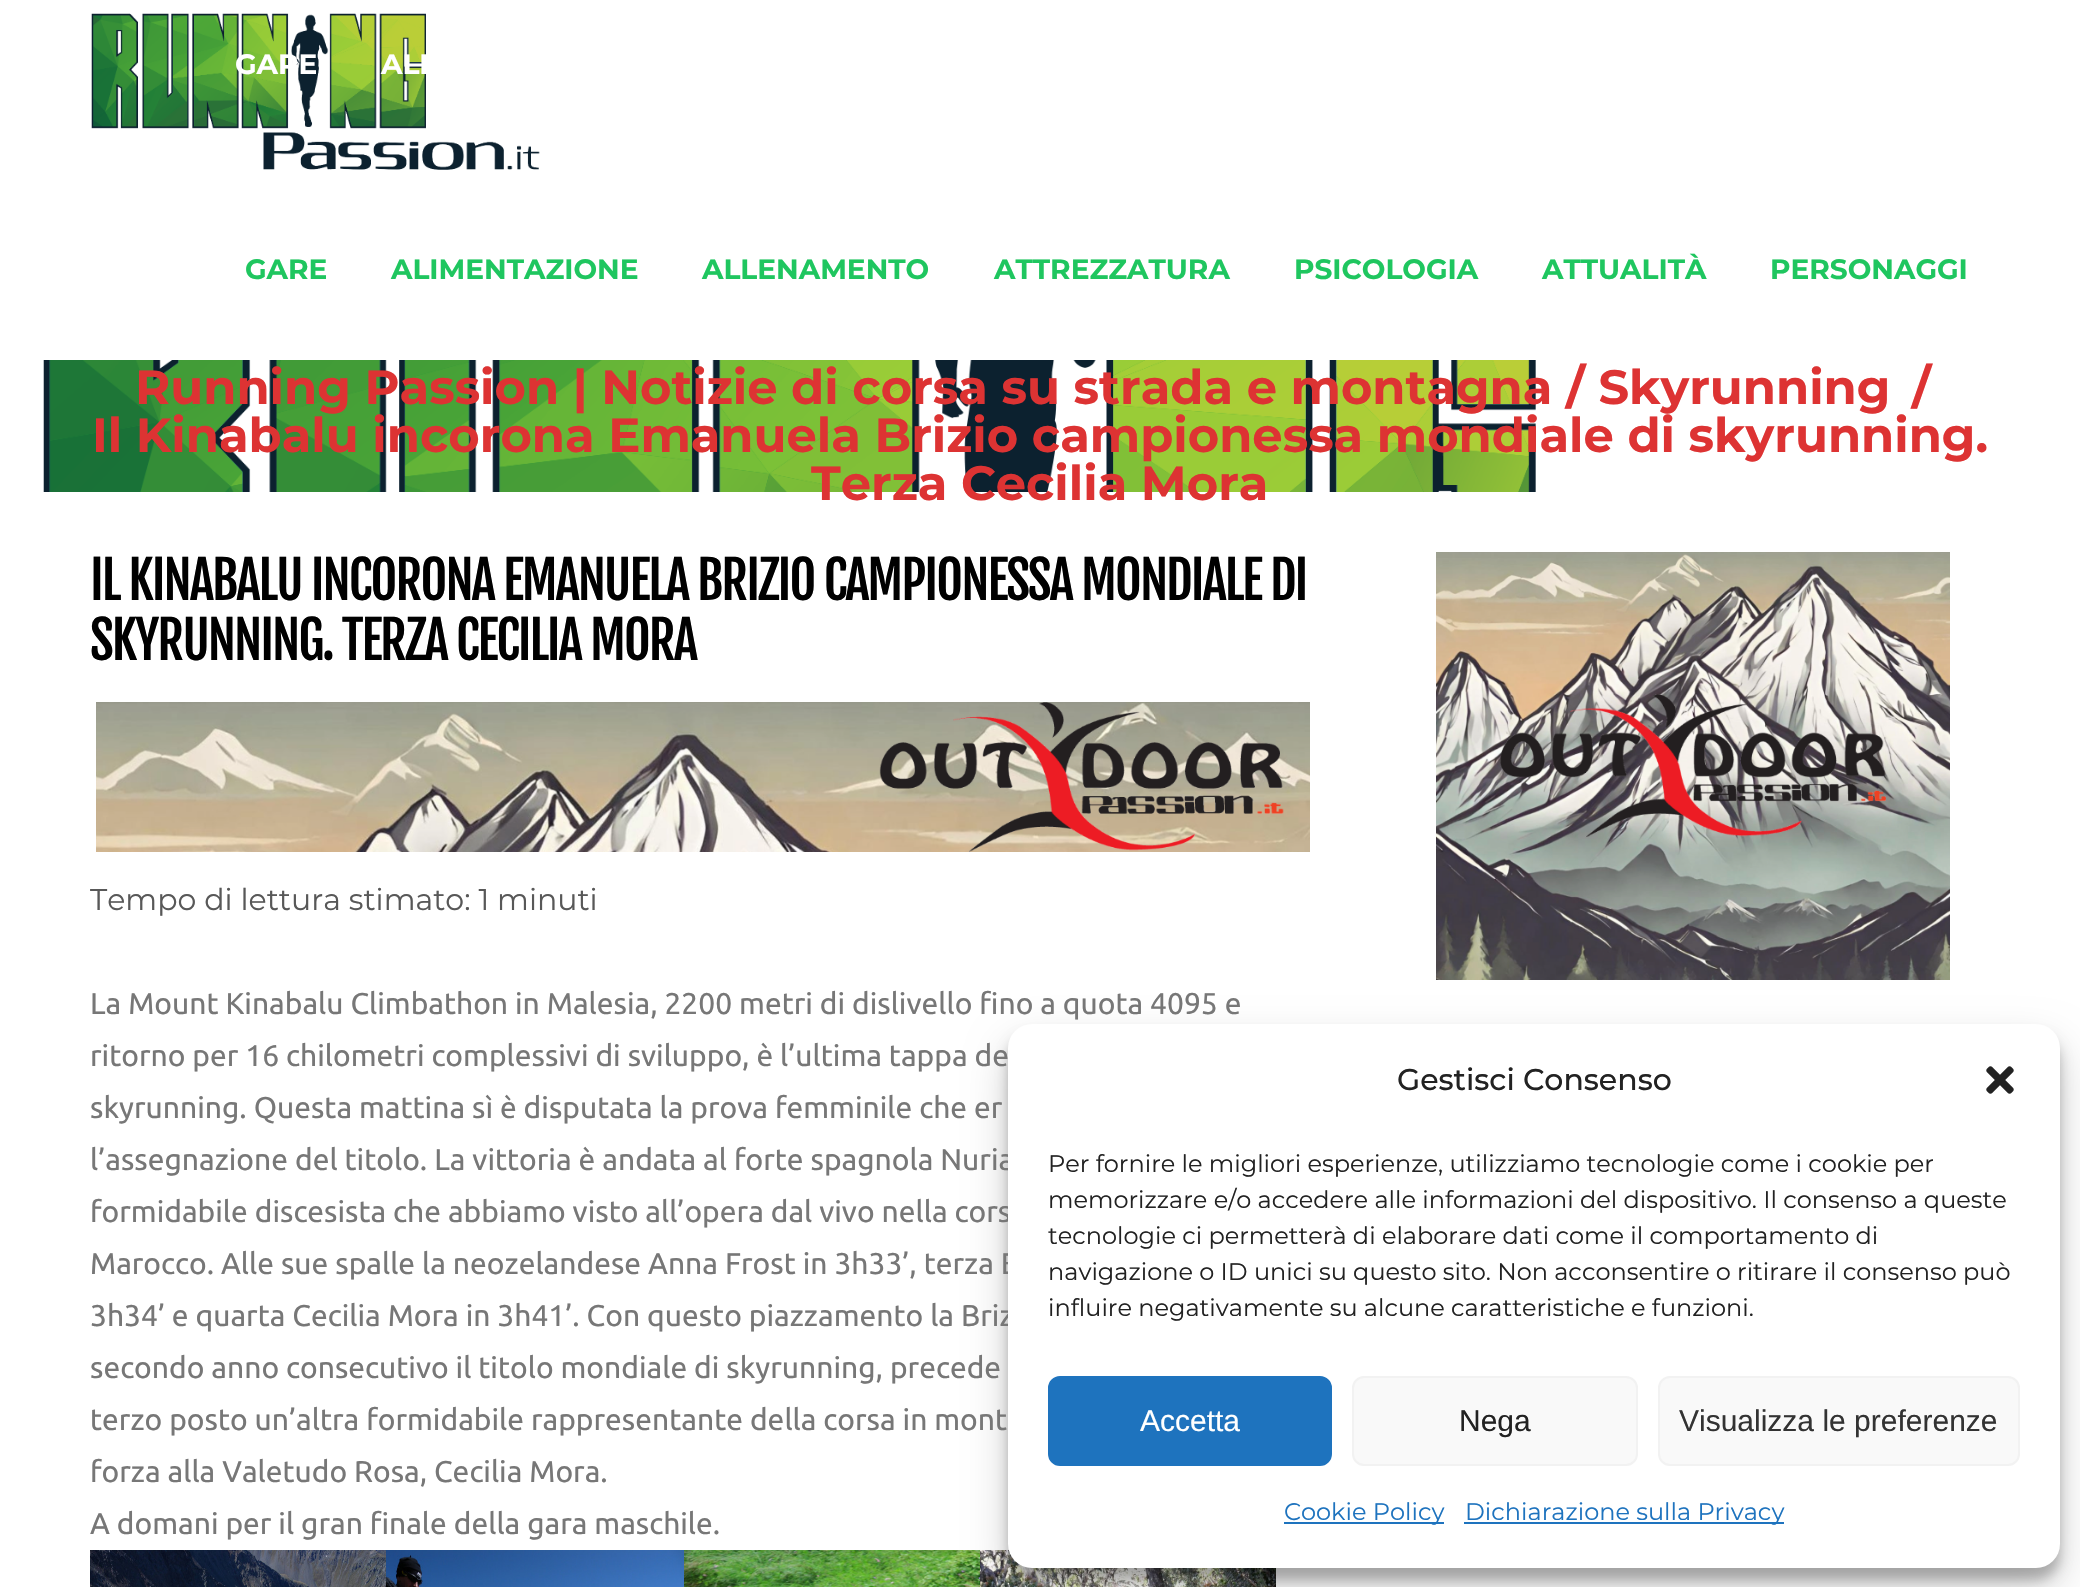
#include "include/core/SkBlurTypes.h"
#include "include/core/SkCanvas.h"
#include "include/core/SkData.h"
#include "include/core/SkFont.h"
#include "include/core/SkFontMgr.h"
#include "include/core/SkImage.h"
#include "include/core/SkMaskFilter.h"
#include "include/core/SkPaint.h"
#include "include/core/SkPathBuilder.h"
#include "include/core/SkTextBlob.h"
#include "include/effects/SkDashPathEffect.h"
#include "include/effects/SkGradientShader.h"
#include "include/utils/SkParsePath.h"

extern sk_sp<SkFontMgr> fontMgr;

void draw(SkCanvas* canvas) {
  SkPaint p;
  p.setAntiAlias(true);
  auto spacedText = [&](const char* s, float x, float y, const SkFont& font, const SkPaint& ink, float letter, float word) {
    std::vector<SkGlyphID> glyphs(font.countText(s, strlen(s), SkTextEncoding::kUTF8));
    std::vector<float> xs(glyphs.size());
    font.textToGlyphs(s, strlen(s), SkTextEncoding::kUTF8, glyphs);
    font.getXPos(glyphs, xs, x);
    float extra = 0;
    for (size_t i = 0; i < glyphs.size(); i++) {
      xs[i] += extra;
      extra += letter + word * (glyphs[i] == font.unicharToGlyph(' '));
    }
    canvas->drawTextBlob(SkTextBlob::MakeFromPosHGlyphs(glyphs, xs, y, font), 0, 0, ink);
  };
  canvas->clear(SK_ColorWHITE);
  canvas->drawImageRect(SkImages::DeferredFromEncodedData(SkData::MakeFromFileName("images/1.png")), SkRect::MakeLTRB(91, 13, 540, 170), SkSamplingOptions());
  canvas->drawImageRect(SkImages::DeferredFromEncodedData(SkData::MakeFromFileName("images/2.png")), SkRect::MakeLTRB(43, 360, 1536, 492), SkSamplingOptions());
  canvas->drawImageRect(SkImages::DeferredFromEncodedData(SkData::MakeFromFileName("images/3.png")), SkRect::MakeLTRB(96, 702, 1310, 852), SkSamplingOptions());
  canvas->drawImageRect(SkImages::DeferredFromEncodedData(SkData::MakeFromFileName("images/4.png")), SkRect::MakeLTRB(90, 1550, 386, 1587), SkSamplingOptions());
  canvas->drawImageRect(SkImages::DeferredFromEncodedData(SkData::MakeFromFileName("images/5.png")), SkRect::MakeLTRB(386, 1550, 684, 1587), SkSamplingOptions());
  canvas->drawImageRect(SkImages::DeferredFromEncodedData(SkData::MakeFromFileName("images/6.png")), SkRect::MakeLTRB(684, 1550, 980, 1587), SkSamplingOptions());
  canvas->drawImageRect(SkImages::DeferredFromEncodedData(SkData::MakeFromFileName("images/7.png")), SkRect::MakeLTRB(980, 1550, 1276, 1587), SkSamplingOptions());
  canvas->drawImageRect(SkImages::DeferredFromEncodedData(SkData::MakeFromFileName("images/8.png")), SkRect::MakeLTRB(1436, 552, 1950, 980), SkSamplingOptions());
  p.setColor(SkColorSetARGB(59, 0, 0, 0));
  p.setMaskFilter(SkMaskFilter::MakeBlur(kNormal_SkBlurStyle, 6));
  canvas->drawRoundRect(SkRect::MakeLTRB(1008, 1036, 2060, 1580), 24, 24, p);
  p.setMaskFilter(nullptr);
  p.setColor(SkColorSetARGB(48, 0, 0, 0));
  p.setMaskFilter(SkMaskFilter::MakeBlur(kNormal_SkBlurStyle, 20));
  canvas->drawRoundRect(SkRect::MakeLTRB(1008, 1044, 2060, 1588), 24, 24, p);
  p.setMaskFilter(nullptr);
  SkFont font1(fontMgr->matchFamilyStyle("Montserrat", SkFontStyle::Bold()), 28);
  font1.setSubpixel(true);
  p.setColor(SK_ColorWHITE);
  canvas->drawString("GARE", 235, 74, font1, p);
  canvas->drawString("ALI", 381, 74, font1, p);
  p.setColor(SkColorSetRGB(31, 198, 95));
  canvas->drawString("GARE", 245, 279, font1, p);
  canvas->drawString("ALIMENTAZIONE", 391, 279, font1, p);
  canvas->drawString("ALLENAMENTO", 702, 279, font1, p);
  canvas->drawString("ATTREZZATURA", 994, 279, font1, p);
  canvas->drawString("PSICOLOGIA", 1294, 279, font1, p);
  canvas->drawString("ATTUALITÀ", 1542, 279, font1, p);
  canvas->drawString("PERSONAGGI", 1770, 279, font1, p);
  SkFont font2(fontMgr->matchFamilyStyle("Montserrat", SkFontStyle::Bold()), 48);
  font2.setSubpixel(true);
  p.setColor(SkColorSetRGB(221, 51, 51));
  canvas->drawString("Running Passion | Notizie di corsa su strada e montagna / Skyrunning", 135, 404, font2, p);
  canvas->drawString("/", 1912, 404, font2, p);
  canvas->drawString("Il Kinabalu incorona Emanuela Brizio campionessa mondiale di skyrunning.", 92, 452, font2, p);
  canvas->drawString("Terza Cecilia Mora", 811, 500, font2, p);
  SkFont font3(fontMgr->matchFamilyStyle("Fjalla One", SkFontStyle::Normal()), 52);
  font3.setSubpixel(true);
  p.setColor(SK_ColorBLACK);
  spacedText("IL KINABALU INCORONA EMANUELA BRIZIO CAMPIONESSA MONDIALE DI", 90, 600, font3, p, -2.08f, 0);
  spacedText("SKYRUNNING. TERZA CECILIA MORA", 90, 660, font3, p, -2.08f, 0);
  SkFont font4(fontMgr->matchFamilyStyle("Montserrat", SkFontStyle::Normal()), 30);
  font4.setSubpixel(true);
  p.setColor(SkColorSetRGB(88, 88, 88));
  canvas->drawString("Tempo di lettura stimato: 1 minuti", 90, 910, font4, p);
  SkFont font5(fontMgr->matchFamilyStyle("Ubuntu", SkFontStyle::Normal()), 30);
  font5.setSubpixel(true);
  p.setColor(SkColorSetRGB(119, 119, 119));
  canvas->drawString("La Mount Kinabalu Climbathon in Malesia, 2200 metri di dislivello fino a quota 4095 e", 90, 1014, font5, p);
  canvas->drawString("ritorno per 16 chilometri complessivi di sviluppo, è l’ultima tappa de", 90, 1066, font5, p);
  canvas->drawString("skyrunning. Questa mattina sì è disputata la prova femminile che er", 90, 1118, font5, p);
  canvas->drawString("l’assegnazione del titolo. La vittoria è andata al forte spagnola Nuria", 90, 1170, font5, p);
  canvas->drawString("formidabile discesista che abbiamo visto all’opera dal vivo nella cors", 90, 1222, font5, p);
  canvas->drawString("Marocco. Alle sue spalle la neozelandese Anna Frost in 3h33’, terza E", 90, 1274, font5, p);
  canvas->drawString("3h34’ e quarta Cecilia Mora in 3h41’. Con questo piazzamento la Briz", 90, 1326, font5, p);
  canvas->drawString("secondo anno consecutivo il titolo mondiale di skyrunning, precede", 90, 1378, font5, p);
  canvas->drawString("terzo posto un’altra formidabile rappresentante della corsa in mont", 90, 1430, font5, p);
  canvas->drawString("forza alla Valetudo Rosa, Cecilia Mora.", 90, 1482, font5, p);
  canvas->drawString("A domani per il gran finale della gara maschile.", 90, 1534, font5, p);
  p.setColor(SK_ColorWHITE);
  canvas->drawRoundRect(SkRect::MakeLTRB(1008, 1024, 2060, 1568), 24, 24, p);
  SkFont font6(fontMgr->matchFamilyStyle("Montserrat", SkFontStyle(500, SkFontStyle::kNormal_Width, SkFontStyle::kUpright_Slant)), 30);
  font6.setSubpixel(true);
  p.setColor(SkColorSetRGB(34, 34, 34));
  canvas->drawString("Gestisci Consenso", 1397, 1090, font6, p);
  canvas->drawImageRect(SkImages::DeferredFromEncodedData(SkData::MakeFromFileName("images/9.png")), SkRect::MakeLTRB(1986, 1066, 2014, 1094), SkSamplingOptions());
  SkFont font7(fontMgr->matchFamilyStyle("Montserrat", SkFontStyle::Normal()), 24);
  font7.setSubpixel(true);
  canvas->drawString("Per fornire le migliori esperienze, utilizziamo tecnologie come i cookie per", 1048, 1172, font7, p);
  canvas->drawString("memorizzare e/o accedere alle informazioni del dispositivo. Il consenso a queste", 1048, 1208, font7, p);
  canvas->drawString("tecnologie ci permetterà di elaborare dati come il comportamento di", 1048, 1244, font7, p);
  canvas->drawString("navigazione o ID unici su questo sito. Non acconsentire o ritirare il consenso può", 1048, 1280, font7, p);
  canvas->drawString("influire negativamente su alcune caratteristiche e funzioni.", 1048, 1316, font7, p);
  p.setColor(SkColorSetRGB(30, 115, 190));
  canvas->drawRoundRect(SkRect::MakeLTRB(1049, 1377, 1331, 1465), 11, 11, p);
  p.setStyle(SkPaint::kStroke_Style);
  p.setStrokeWidth(2);
  canvas->drawRoundRect(SkRect::MakeLTRB(1049, 1377, 1331, 1465), 11, 11, p);
  SkFont font8(fontMgr->matchFamilyStyle("Liberation Sans", SkFontStyle::Normal()), 30);
  font8.setSubpixel(true);
  p.setStyle(SkPaint::kFill_Style);
  p.setColor(SK_ColorWHITE);
  canvas->drawString("Accetta", 1140, 1431, font8, p);
  p.setColor(SkColorSetRGB(249, 249, 249));
  canvas->drawRoundRect(SkRect::MakeLTRB(1353, 1377, 1637, 1465), 11, 11, p);
  p.setStyle(SkPaint::kStroke_Style);
  p.setColor(SkColorSetRGB(242, 242, 242));
  canvas->drawRoundRect(SkRect::MakeLTRB(1353, 1377, 1637, 1465), 11, 11, p);
  p.setStyle(SkPaint::kFill_Style);
  p.setColor(SkColorSetRGB(34, 34, 34));
  canvas->drawString("Nega", 1459, 1431, font8, p);
  p.setColor(SkColorSetRGB(249, 249, 249));
  canvas->drawRoundRect(SkRect::MakeLTRB(1659, 1377, 2019, 1465), 11, 11, p);
  p.setStyle(SkPaint::kStroke_Style);
  p.setColor(SkColorSetRGB(242, 242, 242));
  canvas->drawRoundRect(SkRect::MakeLTRB(1659, 1377, 2019, 1465), 11, 11, p);
  p.setStyle(SkPaint::kFill_Style);
  p.setColor(SkColorSetRGB(51, 51, 51));
  canvas->drawString("Visualizza le preferenze", 1679, 1431, font8, p);
  p.setColor(SkColorSetRGB(30, 115, 190));
  canvas->drawRect(SkRect::MakeLTRB(1284, 1522, 1444, 1524), p);
  canvas->drawString("Cookie Policy", 1284, 1520, font7, p);
  canvas->drawRect(SkRect::MakeLTRB(1464, 1522, 1784, 1524), p);
  canvas->drawString("Dichiarazione sulla Privacy", 1465, 1520, font7, p);
}
